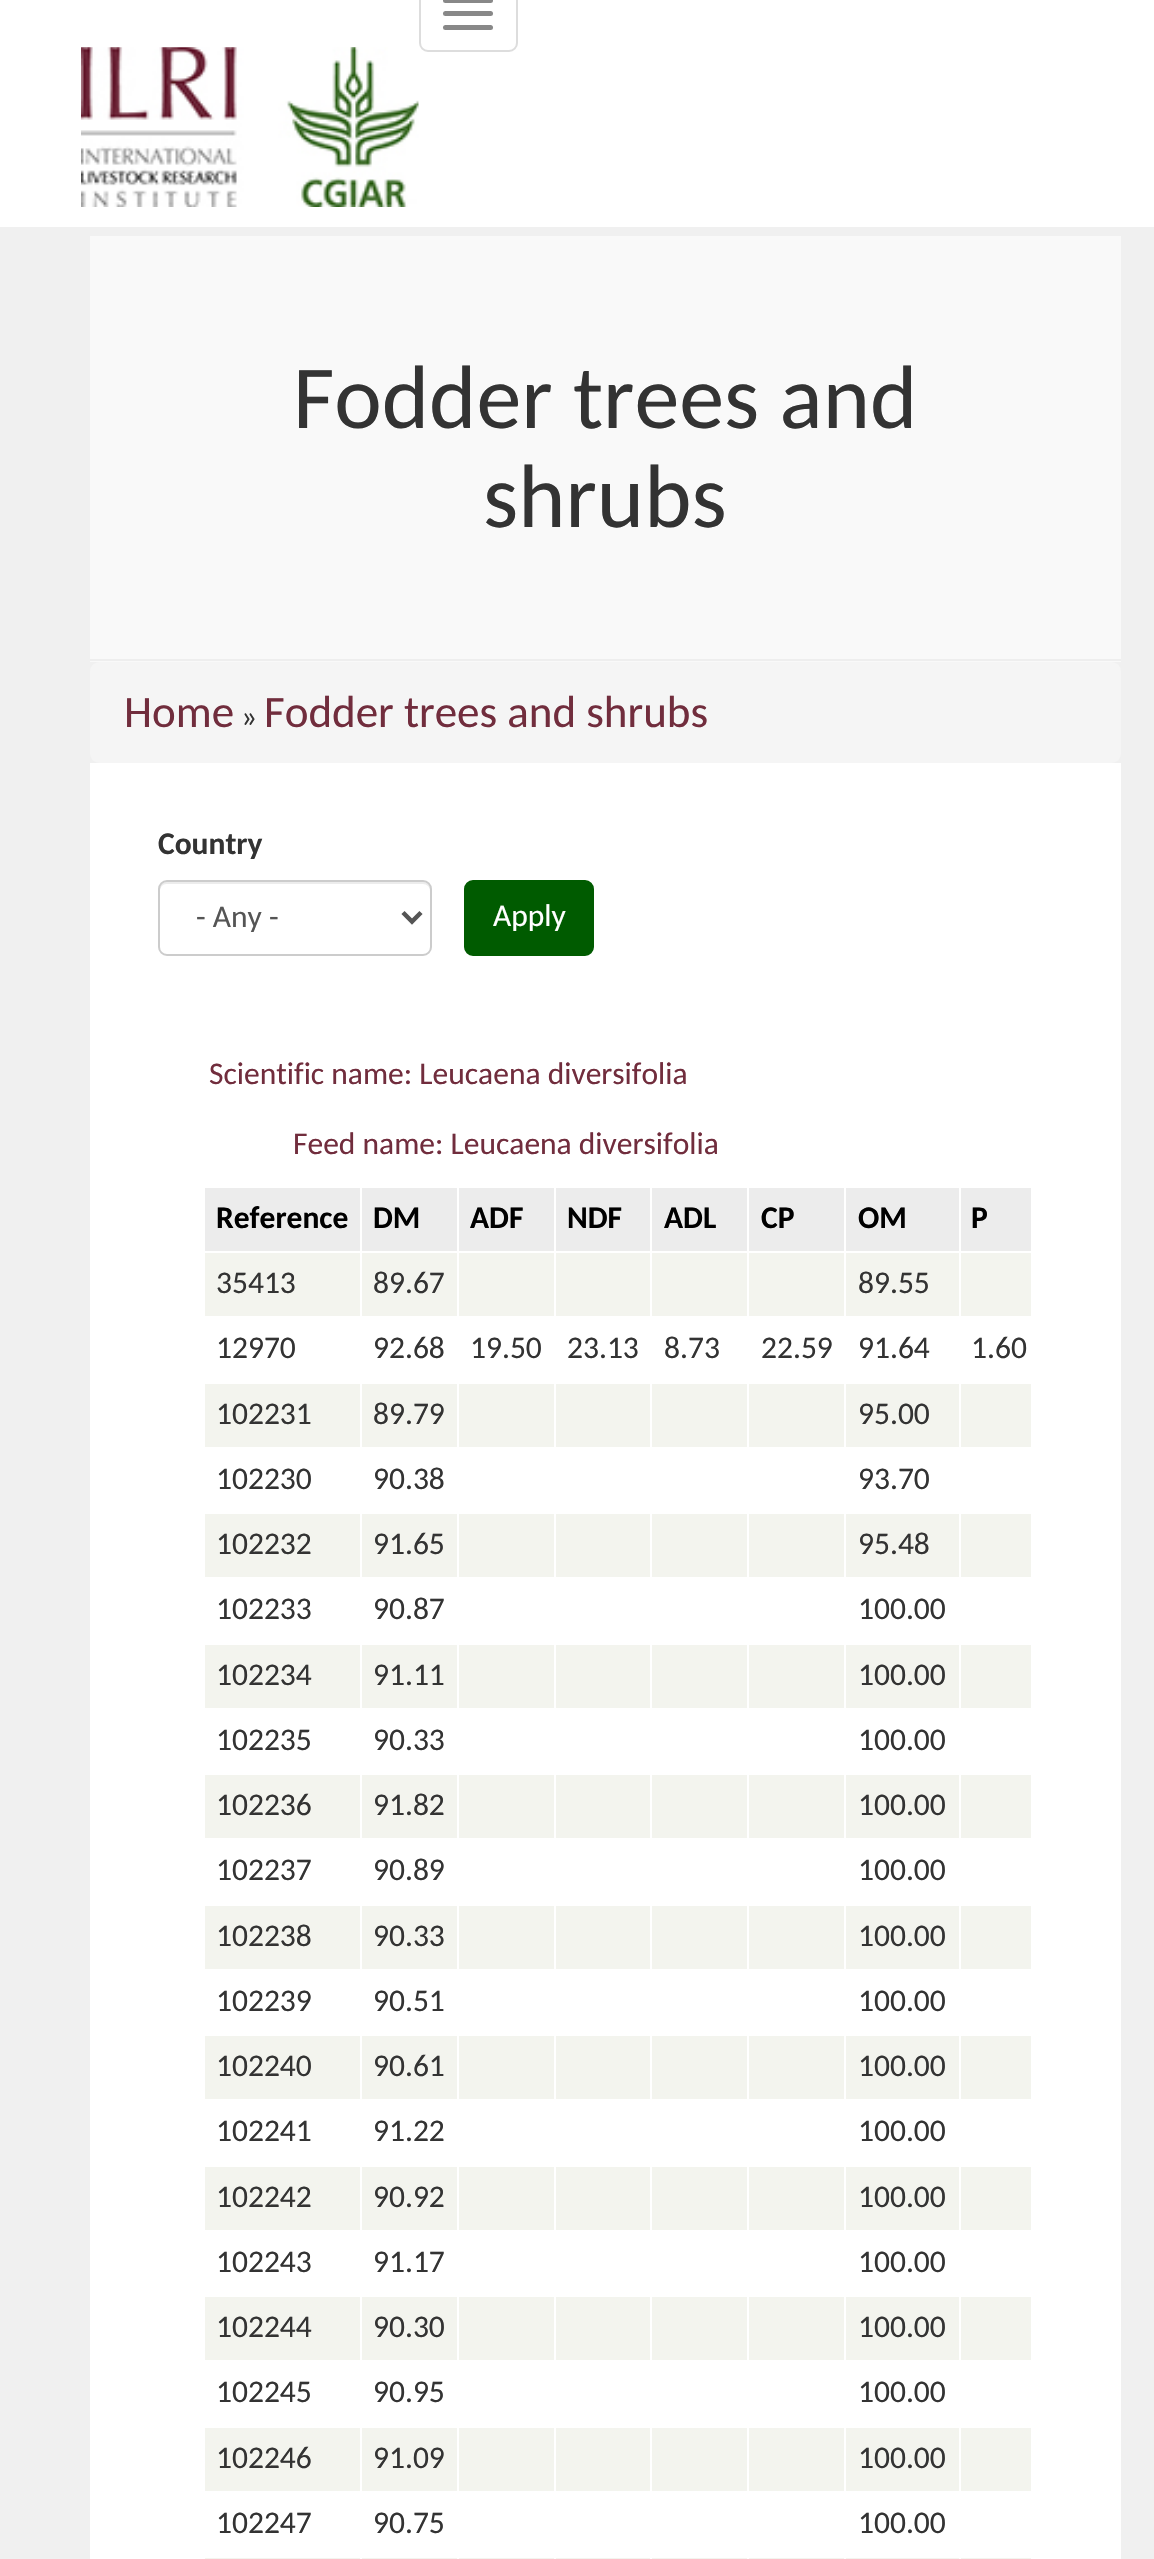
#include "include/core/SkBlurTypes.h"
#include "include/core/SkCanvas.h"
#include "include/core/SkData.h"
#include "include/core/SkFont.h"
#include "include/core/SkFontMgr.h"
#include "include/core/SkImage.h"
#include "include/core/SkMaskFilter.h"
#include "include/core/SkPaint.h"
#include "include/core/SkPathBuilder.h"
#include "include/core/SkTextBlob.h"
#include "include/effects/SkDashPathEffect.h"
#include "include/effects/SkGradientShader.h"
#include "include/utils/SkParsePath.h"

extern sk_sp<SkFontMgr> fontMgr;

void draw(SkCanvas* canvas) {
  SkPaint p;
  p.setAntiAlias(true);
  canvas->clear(SkColorSetRGB(240, 240, 240));
  p.setColor(SK_ColorWHITE);
  canvas->drawRect(SkRect::MakeLTRB(0, 0, 1154, 227), p);
  p.setStyle(SkPaint::kStroke_Style);
  p.setStrokeWidth(2);
  p.setColor(SkColorSetRGB(221, 221, 221));
  canvas->drawRoundRect(SkRect::MakeLTRB(420, -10, 517, 51), 8, 8, p);
  p.setStyle(SkPaint::kFill_Style);
  p.setColor(SkColorSetRGB(136, 136, 136));
  canvas->drawRoundRect(SkRect::MakeLTRB(443, -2, 493, 3), 2.5f, 2.5f, p);
  canvas->drawRoundRect(SkRect::MakeLTRB(443, 11, 493, 16), 2.5f, 2.5f, p);
  canvas->drawRoundRect(SkRect::MakeLTRB(443, 25, 493, 30), 2.5f, 2.5f, p);
  canvas->drawImageRect(SkImages::DeferredFromEncodedData(SkData::MakeFromFileName("images/1.png")), SkRect::MakeLTRB(81, 47, 419, 207), SkSamplingOptions());
  p.setColor(SkColorSetRGB(249, 249, 249));
  canvas->drawRect(SkRect::MakeLTRB(90, 236, 1121, 662), p);
  p.setColor(SkColorSetRGB(238, 238, 238));
  canvas->drawRect(SkRect::MakeLTRB(90, 659, 1121, 661), p);
  p.setColor(SkColorSetRGB(245, 245, 245));
  canvas->drawRoundRect(SkRect::MakeLTRB(90, 662, 1121, 763), 9, 9, p);
  p.setColor(SK_ColorWHITE);
  canvas->drawRect(SkRect::MakeLTRB(90, 763, 1121, 2559), p);
  p.setColor(SkColorSetRGB(236, 236, 236));
  canvas->drawPath(SkPathBuilder().moveTo(166, 884).lineTo(423, 884).cubicTo(427, 884, 430, 887, 430, 891).lineTo(430, 889).cubicTo(430, 885, 427, 882, 423, 882).lineTo(167, 882).cubicTo(163, 882, 160, 885, 160, 889).lineTo(160, 891).cubicTo(160, 887, 163, 884, 166, 884).close().detach(), p);
  p.setStyle(SkPaint::kStroke_Style);
  p.setColor(SkColorSetRGB(204, 204, 204));
  canvas->drawRoundRect(SkRect::MakeLTRB(159, 881, 431, 955), 8, 8, p);
  p.setStrokeWidth(4.5f);
  p.setColor(SkColorSetRGB(85, 85, 85));
  canvas->drawPath(SkPathBuilder().moveTo(403, 912.5f).lineTo(412, 921.5f).lineTo(421, 912.5f).detach(), p);
  p.setStyle(SkPaint::kFill_Style);
  p.setColor(SkColorSetRGB(0, 91, 0));
  canvas->drawRoundRect(SkRect::MakeLTRB(465, 881, 593, 955), 8, 8, p);
  p.setStyle(SkPaint::kStroke_Style);
  p.setStrokeWidth(2);
  canvas->drawRoundRect(SkRect::MakeLTRB(465, 881, 593, 955), 8, 8, p);
  p.setStyle(SkPaint::kFill_Style);
  p.setColor(SkColorSetRGB(236, 236, 236));
  canvas->drawRect(SkRect::MakeLTRB(205, 1188, 360, 1251), p);
  canvas->drawRect(SkRect::MakeLTRB(362, 1188, 457, 1251), p);
  canvas->drawRect(SkRect::MakeLTRB(459, 1188, 554, 1251), p);
  canvas->drawRect(SkRect::MakeLTRB(556, 1188, 747, 1251), p);
  canvas->drawRect(SkRect::MakeLTRB(749, 1188, 844, 1251), p);
  canvas->drawRect(SkRect::MakeLTRB(846, 1188, 959, 1251), p);
  canvas->drawRect(SkRect::MakeLTRB(961, 1188, 1031, 1251), p);
  p.setColor(SkColorSetRGB(243, 244, 238));
  canvas->drawRect(SkRect::MakeLTRB(205, 1253, 1031, 1316), p);
  p.setColor(SK_ColorWHITE);
  canvas->drawRect(SkRect::MakeLTRB(360, 1251, 362, 1319), p);
  canvas->drawRect(SkRect::MakeLTRB(457, 1251, 459, 1319), p);
  canvas->drawRect(SkRect::MakeLTRB(554, 1251, 556, 1319), p);
  canvas->drawRect(SkRect::MakeLTRB(650, 1186, 652, 1319), p);
  canvas->drawRect(SkRect::MakeLTRB(747, 1251, 749, 1319), p);
  canvas->drawRect(SkRect::MakeLTRB(844, 1251, 846, 1319), p);
  canvas->drawRect(SkRect::MakeLTRB(959, 1251, 961, 1319), p);
  p.setColor(SkColorSetRGB(243, 244, 238));
  canvas->drawRect(SkRect::MakeLTRB(205, 1384, 1031, 1447), p);
  p.setColor(SK_ColorWHITE);
  canvas->drawRect(SkRect::MakeLTRB(360, 1382, 362, 1449), p);
  canvas->drawRect(SkRect::MakeLTRB(457, 1382, 459, 1449), p);
  canvas->drawRect(SkRect::MakeLTRB(554, 1382, 556, 1449), p);
  canvas->drawRect(SkRect::MakeLTRB(650, 1382, 652, 1449), p);
  canvas->drawRect(SkRect::MakeLTRB(747, 1382, 749, 1449), p);
  canvas->drawRect(SkRect::MakeLTRB(844, 1382, 846, 1449), p);
  canvas->drawRect(SkRect::MakeLTRB(959, 1382, 961, 1449), p);
  p.setColor(SkColorSetRGB(243, 244, 238));
  canvas->drawRect(SkRect::MakeLTRB(205, 1514, 1031, 1577), p);
  p.setColor(SK_ColorWHITE);
  canvas->drawRect(SkRect::MakeLTRB(360, 1512, 362, 1580), p);
  canvas->drawRect(SkRect::MakeLTRB(457, 1512, 459, 1580), p);
  canvas->drawRect(SkRect::MakeLTRB(554, 1512, 556, 1580), p);
  canvas->drawRect(SkRect::MakeLTRB(650, 1512, 652, 1580), p);
  canvas->drawRect(SkRect::MakeLTRB(747, 1512, 749, 1580), p);
  canvas->drawRect(SkRect::MakeLTRB(844, 1512, 846, 1580), p);
  canvas->drawRect(SkRect::MakeLTRB(959, 1512, 961, 1580), p);
  p.setColor(SkColorSetRGB(243, 244, 238));
  canvas->drawRect(SkRect::MakeLTRB(205, 1645, 1031, 1708), p);
  p.setColor(SK_ColorWHITE);
  canvas->drawRect(SkRect::MakeLTRB(360, 1643, 362, 1710), p);
  canvas->drawRect(SkRect::MakeLTRB(457, 1643, 459, 1710), p);
  canvas->drawRect(SkRect::MakeLTRB(554, 1643, 556, 1710), p);
  canvas->drawRect(SkRect::MakeLTRB(650, 1643, 652, 1710), p);
  canvas->drawRect(SkRect::MakeLTRB(747, 1643, 749, 1710), p);
  canvas->drawRect(SkRect::MakeLTRB(844, 1643, 846, 1710), p);
  canvas->drawRect(SkRect::MakeLTRB(959, 1643, 961, 1710), p);
  p.setColor(SkColorSetRGB(243, 244, 238));
  canvas->drawRect(SkRect::MakeLTRB(205, 1775, 1031, 1838), p);
  p.setColor(SK_ColorWHITE);
  canvas->drawRect(SkRect::MakeLTRB(360, 1773, 362, 1841), p);
  canvas->drawRect(SkRect::MakeLTRB(457, 1773, 459, 1841), p);
  canvas->drawRect(SkRect::MakeLTRB(554, 1773, 556, 1841), p);
  canvas->drawRect(SkRect::MakeLTRB(650, 1773, 652, 1841), p);
  canvas->drawRect(SkRect::MakeLTRB(747, 1773, 749, 1841), p);
  canvas->drawRect(SkRect::MakeLTRB(844, 1773, 846, 1841), p);
  canvas->drawRect(SkRect::MakeLTRB(959, 1773, 961, 1841), p);
  p.setColor(SkColorSetRGB(243, 244, 238));
  canvas->drawRect(SkRect::MakeLTRB(205, 1906, 1031, 1969), p);
  p.setColor(SK_ColorWHITE);
  canvas->drawRect(SkRect::MakeLTRB(360, 1904, 362, 1971), p);
  canvas->drawRect(SkRect::MakeLTRB(457, 1904, 459, 1971), p);
  canvas->drawRect(SkRect::MakeLTRB(554, 1904, 556, 1971), p);
  canvas->drawRect(SkRect::MakeLTRB(650, 1904, 652, 1971), p);
  canvas->drawRect(SkRect::MakeLTRB(747, 1904, 749, 1971), p);
  canvas->drawRect(SkRect::MakeLTRB(844, 1904, 846, 1971), p);
  canvas->drawRect(SkRect::MakeLTRB(959, 1904, 961, 1971), p);
  p.setColor(SkColorSetRGB(243, 244, 238));
  canvas->drawRect(SkRect::MakeLTRB(205, 2036, 1031, 2099), p);
  p.setColor(SK_ColorWHITE);
  canvas->drawRect(SkRect::MakeLTRB(360, 2034, 362, 2102), p);
  canvas->drawRect(SkRect::MakeLTRB(457, 2034, 459, 2102), p);
  canvas->drawRect(SkRect::MakeLTRB(554, 2034, 556, 2102), p);
  canvas->drawRect(SkRect::MakeLTRB(650, 2034, 652, 2102), p);
  canvas->drawRect(SkRect::MakeLTRB(747, 2034, 749, 2102), p);
  canvas->drawRect(SkRect::MakeLTRB(844, 2034, 846, 2102), p);
  canvas->drawRect(SkRect::MakeLTRB(959, 2034, 961, 2102), p);
  p.setColor(SkColorSetRGB(243, 244, 238));
  canvas->drawRect(SkRect::MakeLTRB(205, 2167, 1031, 2230), p);
  p.setColor(SK_ColorWHITE);
  canvas->drawRect(SkRect::MakeLTRB(360, 2165, 362, 2232), p);
  canvas->drawRect(SkRect::MakeLTRB(457, 2165, 459, 2232), p);
  canvas->drawRect(SkRect::MakeLTRB(554, 2165, 556, 2232), p);
  canvas->drawRect(SkRect::MakeLTRB(650, 2165, 652, 2232), p);
  canvas->drawRect(SkRect::MakeLTRB(747, 2165, 749, 2232), p);
  canvas->drawRect(SkRect::MakeLTRB(844, 2165, 846, 2232), p);
  canvas->drawRect(SkRect::MakeLTRB(959, 2165, 961, 2232), p);
  p.setColor(SkColorSetRGB(243, 244, 238));
  canvas->drawRect(SkRect::MakeLTRB(205, 2297, 1031, 2360), p);
  p.setColor(SK_ColorWHITE);
  canvas->drawRect(SkRect::MakeLTRB(360, 2295, 362, 2363), p);
  canvas->drawRect(SkRect::MakeLTRB(457, 2295, 459, 2363), p);
  canvas->drawRect(SkRect::MakeLTRB(554, 2295, 556, 2363), p);
  canvas->drawRect(SkRect::MakeLTRB(650, 2295, 652, 2363), p);
  canvas->drawRect(SkRect::MakeLTRB(747, 2295, 749, 2363), p);
  canvas->drawRect(SkRect::MakeLTRB(844, 2295, 846, 2363), p);
  canvas->drawRect(SkRect::MakeLTRB(959, 2295, 961, 2363), p);
  p.setColor(SkColorSetRGB(243, 244, 238));
  canvas->drawRect(SkRect::MakeLTRB(205, 2428, 1031, 2491), p);
  p.setColor(SK_ColorWHITE);
  canvas->drawRect(SkRect::MakeLTRB(360, 2426, 362, 2493), p);
  canvas->drawRect(SkRect::MakeLTRB(457, 2426, 459, 2493), p);
  canvas->drawRect(SkRect::MakeLTRB(554, 2426, 556, 2493), p);
  canvas->drawRect(SkRect::MakeLTRB(650, 2426, 652, 2493), p);
  canvas->drawRect(SkRect::MakeLTRB(747, 2426, 749, 2493), p);
  canvas->drawRect(SkRect::MakeLTRB(844, 2426, 846, 2493), p);
  canvas->drawRect(SkRect::MakeLTRB(959, 2426, 961, 2493), p);
  p.setColor(SkColorSetRGB(243, 244, 238));
  canvas->drawRect(SkRect::MakeLTRB(205, 2558, 1031, 2559), p);
  p.setColor(SK_ColorWHITE);
  canvas->drawRect(SkRect::MakeLTRB(360, 2556, 362, 2559), p);
  canvas->drawRect(SkRect::MakeLTRB(457, 2556, 459, 2559), p);
  canvas->drawRect(SkRect::MakeLTRB(554, 2556, 556, 2559), p);
  canvas->drawRect(SkRect::MakeLTRB(650, 2556, 652, 2559), p);
  canvas->drawRect(SkRect::MakeLTRB(747, 2556, 749, 2559), p);
  canvas->drawRect(SkRect::MakeLTRB(844, 2556, 846, 2559), p);
  canvas->drawRect(SkRect::MakeLTRB(959, 2556, 961, 2559), p);
  SkFont font1(fontMgr->matchFamilyStyle("Carlito", SkFontStyle::Normal()), 90);
  font1.setSubpixel(true);
  p.setColor(SkColorSetRGB(51, 51, 51));
  canvas->drawString("Fodder trees and", 293, 428, font1, p);
  canvas->drawString("shrubs", 483, 527, font1, p);
  SkFont font2(fontMgr->matchFamilyStyle("Carlito", SkFontStyle::Normal()), 45);
  font2.setSubpixel(true);
  p.setColor(SkColorSetRGB(113, 45, 61));
  canvas->drawString("Home", 124, 727, font2, p);
  SkFont font3(fontMgr->matchFamilyStyle("Carlito", SkFontStyle::Normal()), 31.5f);
  font3.setSubpixel(true);
  p.setColor(SkColorSetRGB(51, 51, 51));
  canvas->drawString("»", 241, 727, font3, p);
  p.setColor(SkColorSetRGB(113, 45, 61));
  canvas->drawString("Fodder trees and shrubs", 264, 727, font2, p);
  SkFont font4(fontMgr->matchFamilyStyle("Carlito", SkFontStyle::Bold()), 31.5f);
  font4.setSubpixel(true);
  p.setColor(SkColorSetRGB(51, 51, 51));
  canvas->drawString("Country", 158, 854, font4, p);
  p.setColor(SkColorSetRGB(85, 85, 85));
  canvas->drawString("- Any -", 196, 927, font3, p);
  p.setColor(SK_ColorWHITE);
  canvas->drawString("Apply", 493, 926, font3, p);
  p.setColor(SkColorSetRGB(113, 45, 61));
  canvas->drawString("Scientific name: Leucaena diversifolia", 209, 1084, font3, p);
  canvas->drawString("Feed name: Leucaena diversifolia", 293, 1154, font3, p);
  p.setColor(SK_ColorBLACK);
  canvas->drawString("Reference", 216, 1228, font4, p);
  canvas->drawString("DM", 373, 1228, font4, p);
  canvas->drawString("ADF", 470, 1228, font4, p);
  canvas->drawString("NDF", 567, 1228, font4, p);
  canvas->drawString("ADL", 664, 1228, font4, p);
  canvas->drawString("CP", 761, 1228, font4, p);
  canvas->drawString("OM", 858, 1228, font4, p);
  canvas->drawString("P", 971, 1228, font4, p);
  p.setColor(SkColorSetRGB(51, 51, 51));
  canvas->drawString("35413", 216, 1293, font3, p);
  canvas->drawString("89.67", 373, 1293, font3, p);
  canvas->drawString("89.55", 858, 1293, font3, p);
  canvas->drawString("12970", 216, 1358, font3, p);
  canvas->drawString("92.68", 373, 1358, font3, p);
  canvas->drawString("19.50", 470, 1358, font3, p);
  canvas->drawString("23.13", 567, 1358, font3, p);
  canvas->drawString("8.73", 664, 1358, font3, p);
  canvas->drawString("22.59", 761, 1358, font3, p);
  canvas->drawString("91.64", 858, 1358, font3, p);
  canvas->drawString("1.60", 971, 1358, font3, p);
  canvas->drawString("102231", 216, 1424, font3, p);
  canvas->drawString("89.79", 373, 1424, font3, p);
  canvas->drawString("95.00", 858, 1424, font3, p);
  canvas->drawString("102230", 216, 1489, font3, p);
  canvas->drawString("90.38", 373, 1489, font3, p);
  canvas->drawString("93.70", 858, 1489, font3, p);
  canvas->drawString("102232", 216, 1554, font3, p);
  canvas->drawString("91.65", 373, 1554, font3, p);
  canvas->drawString("95.48", 858, 1554, font3, p);
  canvas->drawString("102233", 216, 1619, font3, p);
  canvas->drawString("90.87", 373, 1619, font3, p);
  canvas->drawString("100.00", 858, 1619, font3, p);
  canvas->drawString("102234", 216, 1685, font3, p);
  canvas->drawString("91.11", 373, 1685, font3, p);
  canvas->drawString("100.00", 858, 1685, font3, p);
  canvas->drawString("102235", 216, 1750, font3, p);
  canvas->drawString("90.33", 373, 1750, font3, p);
  canvas->drawString("100.00", 858, 1750, font3, p);
  canvas->drawString("102236", 216, 1815, font3, p);
  canvas->drawString("91.82", 373, 1815, font3, p);
  canvas->drawString("100.00", 858, 1815, font3, p);
  canvas->drawString("102237", 216, 1880, font3, p);
  canvas->drawString("90.89", 373, 1880, font3, p);
  canvas->drawString("100.00", 858, 1880, font3, p);
  canvas->drawString("102238", 216, 1946, font3, p);
  canvas->drawString("90.33", 373, 1946, font3, p);
  canvas->drawString("100.00", 858, 1946, font3, p);
  canvas->drawString("102239", 216, 2011, font3, p);
  canvas->drawString("90.51", 373, 2011, font3, p);
  canvas->drawString("100.00", 858, 2011, font3, p);
  canvas->drawString("102240", 216, 2076, font3, p);
  canvas->drawString("90.61", 373, 2076, font3, p);
  canvas->drawString("100.00", 858, 2076, font3, p);
  canvas->drawString("102241", 216, 2141, font3, p);
  canvas->drawString("91.22", 373, 2141, font3, p);
  canvas->drawString("100.00", 858, 2141, font3, p);
  canvas->drawString("102242", 216, 2207, font3, p);
  canvas->drawString("90.92", 373, 2207, font3, p);
  canvas->drawString("100.00", 858, 2207, font3, p);
  canvas->drawString("102243", 216, 2272, font3, p);
  canvas->drawString("91.17", 373, 2272, font3, p);
  canvas->drawString("100.00", 858, 2272, font3, p);
  canvas->drawString("102244", 216, 2337, font3, p);
  canvas->drawString("90.30", 373, 2337, font3, p);
  canvas->drawString("100.00", 858, 2337, font3, p);
  canvas->drawString("102245", 216, 2402, font3, p);
  canvas->drawString("90.95", 373, 2402, font3, p);
  canvas->drawString("100.00", 858, 2402, font3, p);
  canvas->drawString("102246", 216, 2468, font3, p);
  canvas->drawString("91.09", 373, 2468, font3, p);
  canvas->drawString("100.00", 858, 2468, font3, p);
  canvas->drawString("102247", 216, 2533, font3, p);
  canvas->drawString("90.75", 373, 2533, font3, p);
  canvas->drawString("100.00", 858, 2533, font3, p);
}
